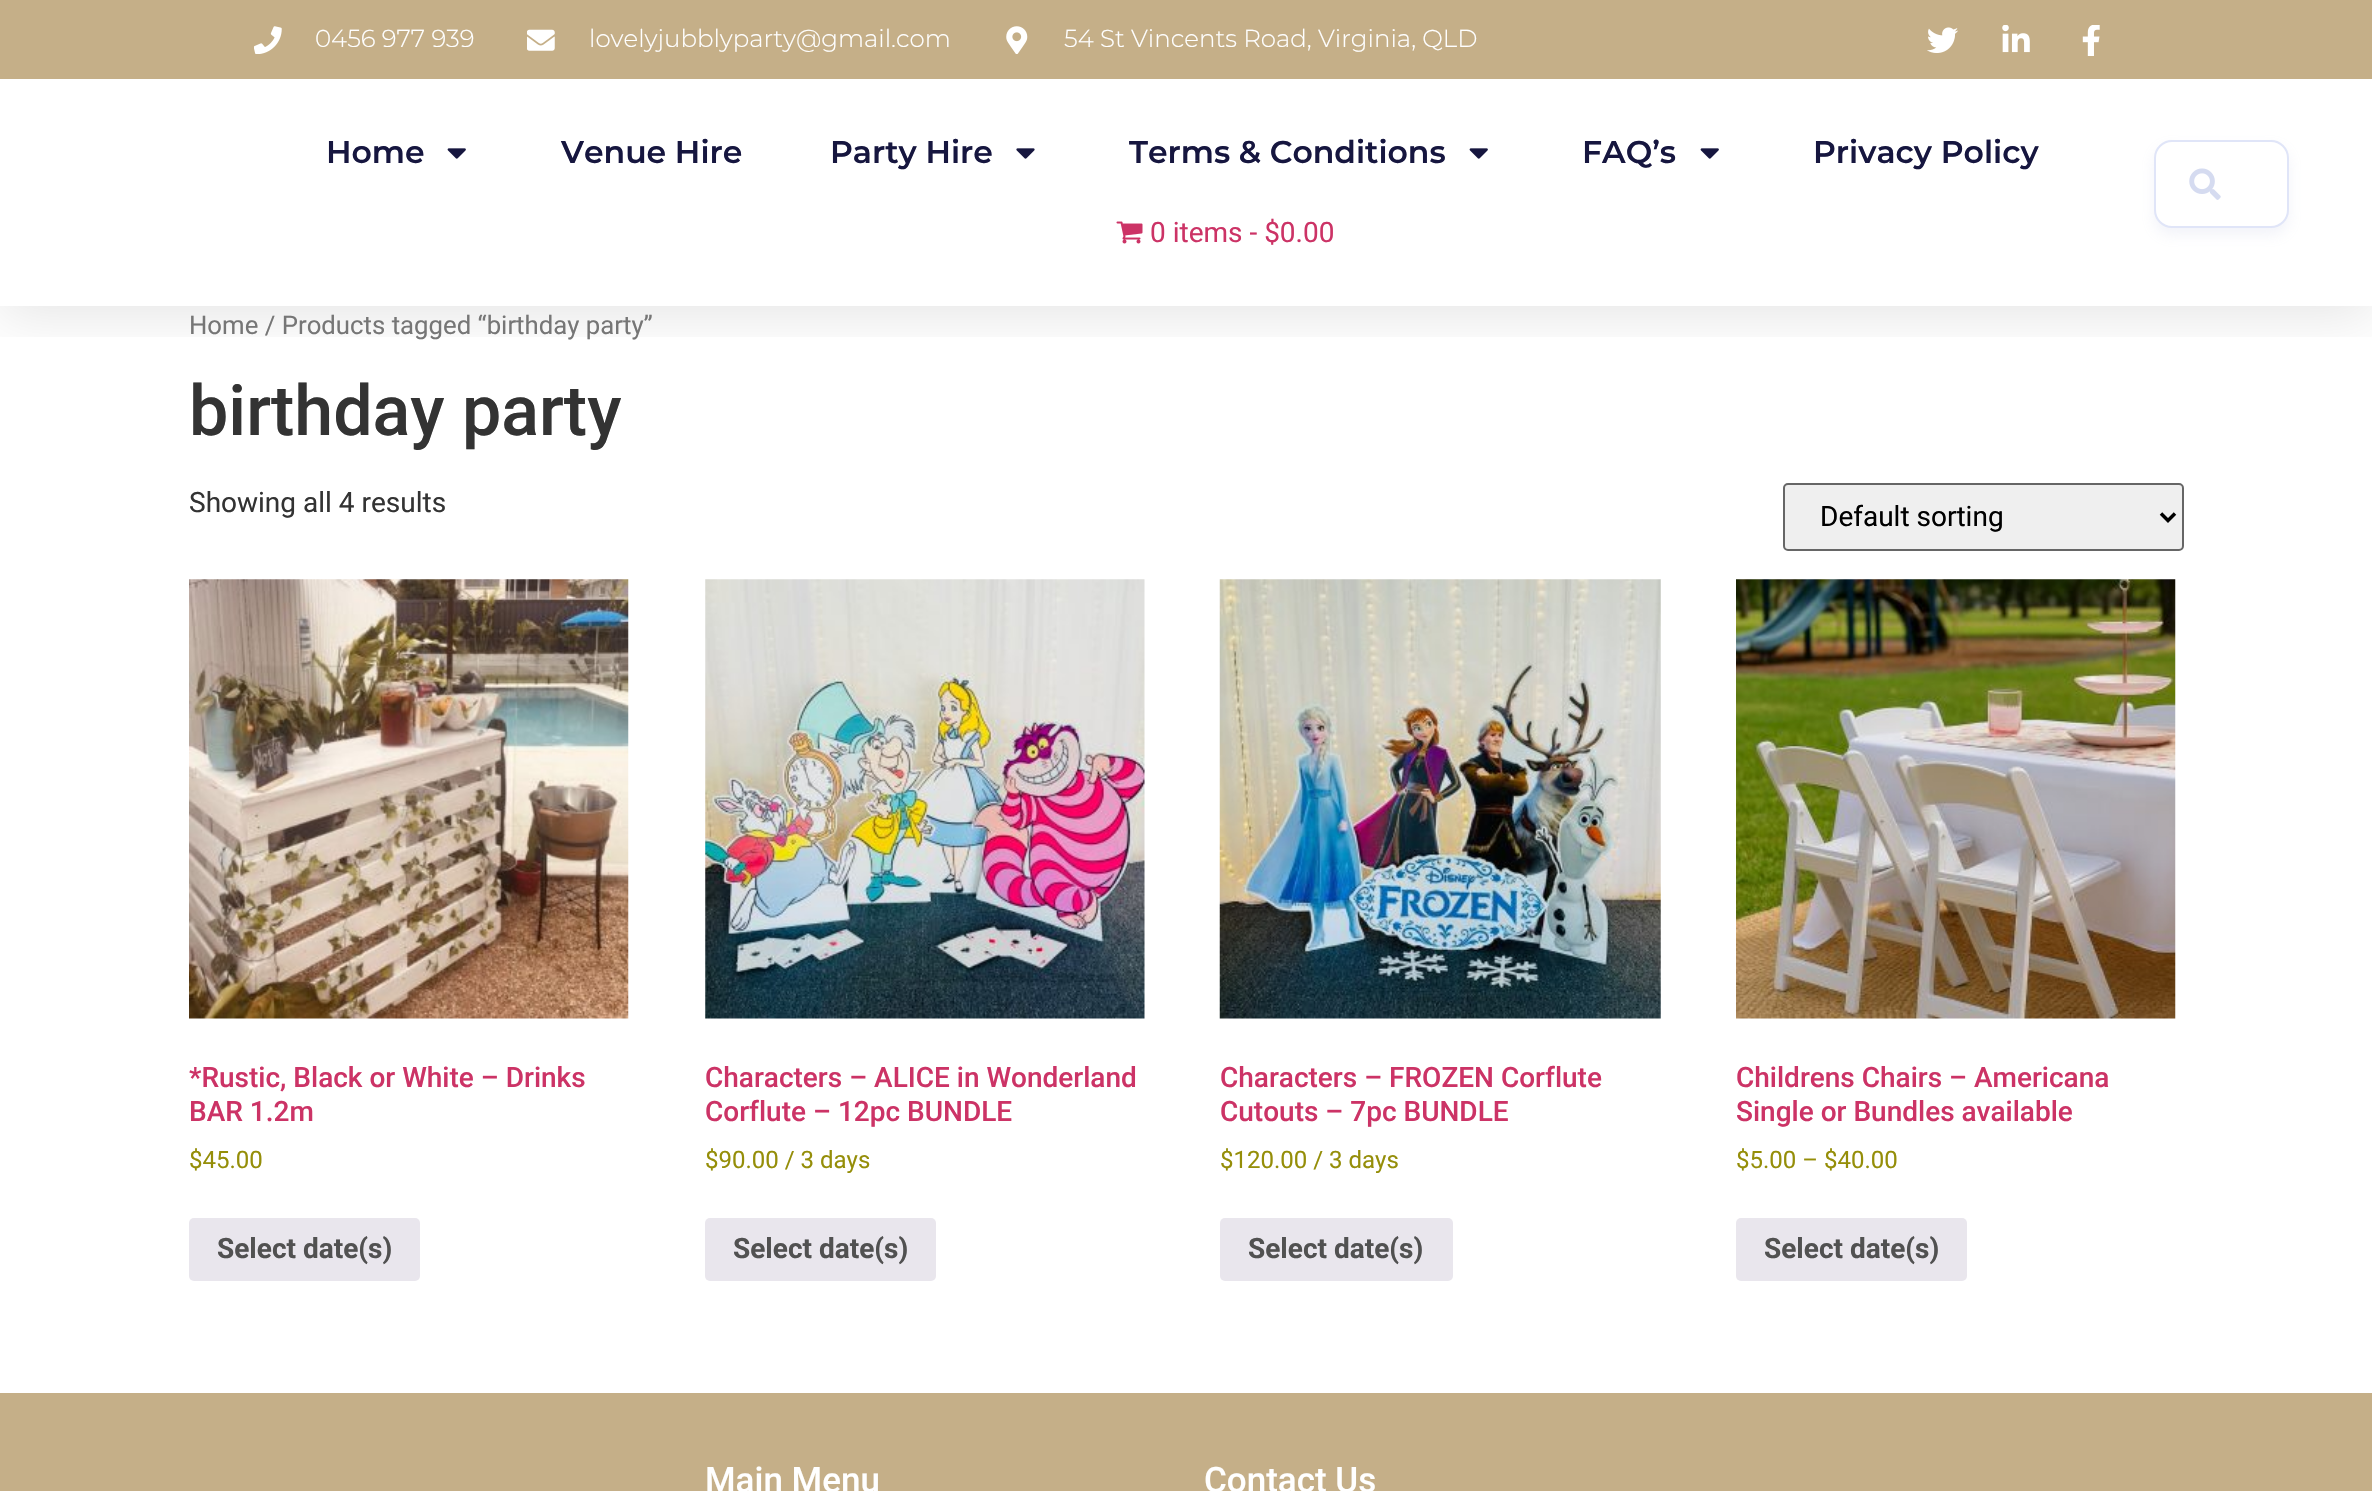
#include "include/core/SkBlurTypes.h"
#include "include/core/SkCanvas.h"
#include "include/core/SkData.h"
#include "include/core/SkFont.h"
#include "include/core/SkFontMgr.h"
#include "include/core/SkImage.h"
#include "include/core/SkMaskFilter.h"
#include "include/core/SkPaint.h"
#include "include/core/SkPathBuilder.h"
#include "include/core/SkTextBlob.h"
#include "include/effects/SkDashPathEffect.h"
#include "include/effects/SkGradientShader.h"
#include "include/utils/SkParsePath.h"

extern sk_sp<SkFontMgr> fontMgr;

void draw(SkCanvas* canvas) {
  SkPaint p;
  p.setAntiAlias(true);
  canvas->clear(SK_ColorWHITE);
  canvas->save();
  canvas->clipRect(SkRect::MakeLTRB(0, 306, 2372, 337));
  p.setColor(SkColorSetARGB(26, 0, 0, 0));
  p.setMaskFilter(SkMaskFilter::MakeBlur(kNormal_SkBlurStyle, 26));
  canvas->drawRect(SkRect::MakeLTRB(0, 9, 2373, 315), p);
  p.setMaskFilter(nullptr);
  canvas->restore();
  p.setColor(SkColorSetRGB(197, 175, 136));
  canvas->drawRect(SkRect::MakeLTRB(0, 0, 2372, 79), p);
  canvas->drawImageRect(SkImages::DeferredFromEncodedData(SkData::MakeFromFileName("images/1.png")), SkRect::MakeLTRB(254, 26, 282, 54), SkSamplingOptions());
  canvas->drawImageRect(SkImages::DeferredFromEncodedData(SkData::MakeFromFileName("images/2.png")), SkRect::MakeLTRB(527, 29, 555, 51), SkSamplingOptions());
  canvas->drawImageRect(SkImages::DeferredFromEncodedData(SkData::MakeFromFileName("images/3.png")), SkRect::MakeLTRB(1006, 26, 1028, 54), SkSamplingOptions());
  canvas->drawImageRect(SkImages::DeferredFromEncodedData(SkData::MakeFromFileName("images/4.png")), SkRect::MakeLTRB(1927, 27, 1958, 53), SkSamplingOptions());
  canvas->drawImageRect(SkImages::DeferredFromEncodedData(SkData::MakeFromFileName("images/5.png")), SkRect::MakeLTRB(2002, 25, 2030, 53), SkSamplingOptions());
  canvas->drawImageRect(SkImages::DeferredFromEncodedData(SkData::MakeFromFileName("images/6.png")), SkRect::MakeLTRB(2082, 25, 2100, 56), SkSamplingOptions());
  canvas->drawImageRect(SkImages::DeferredFromEncodedData(SkData::MakeFromFileName("images/7.png")), SkRect::MakeLTRB(447, 148, 466, 159), SkSamplingOptions());
  canvas->drawImageRect(SkImages::DeferredFromEncodedData(SkData::MakeFromFileName("images/8.png")), SkRect::MakeLTRB(1016, 148, 1035, 159), SkSamplingOptions());
  canvas->drawImageRect(SkImages::DeferredFromEncodedData(SkData::MakeFromFileName("images/7.png")), SkRect::MakeLTRB(1469, 148, 1488, 159), SkSamplingOptions());
  canvas->drawImageRect(SkImages::DeferredFromEncodedData(SkData::MakeFromFileName("images/7.png")), SkRect::MakeLTRB(1700, 148, 1719, 159), SkSamplingOptions());
  canvas->drawImageRect(SkImages::DeferredFromEncodedData(SkData::MakeFromFileName("images/9.png")), SkRect::MakeLTRB(1116, 221, 1143, 244), SkSamplingOptions());
  p.setColor(SkColorSetARGB(38, 165, 174, 213));
  p.setMaskFilter(SkMaskFilter::MakeBlur(kNormal_SkBlurStyle, 7));
  canvas->drawRoundRect(SkRect::MakeLTRB(2154, 147, 2289, 235), 18, 18, p);
  p.setMaskFilter(nullptr);
  p.setColor(SK_ColorWHITE);
  canvas->drawRoundRect(SkRect::MakeLTRB(2155, 141, 2288, 227), 17, 17, p);
  p.setStyle(SkPaint::kStroke_Style);
  p.setStrokeWidth(2);
  p.setColor(SkColorSetRGB(224, 229, 248));
  canvas->drawRoundRect(SkRect::MakeLTRB(2155, 141, 2288, 227), 17, 17, p);
  canvas->drawImageRect(SkImages::DeferredFromEncodedData(SkData::MakeFromFileName("images/10.png")), SkRect::MakeLTRB(2189, 168, 2221, 200), SkSamplingOptions());
  p.setStyle(SkPaint::kFill_Style);
  p.setColor(SkColorSetRGB(239, 239, 239));
  canvas->drawRoundRect(SkRect::MakeLTRB(1784, 484, 2183, 550), 4, 4, p);
  p.setStyle(SkPaint::kStroke_Style);
  p.setColor(SkColorSetRGB(102, 102, 102));
  canvas->drawRoundRect(SkRect::MakeLTRB(1784, 484, 2183, 550), 4, 4, p);
  p.setStrokeWidth(3.5f);
  p.setColor(SK_ColorBLACK);
  canvas->drawPath(SkPathBuilder().moveTo(2161, 513.5f).lineTo(2168, 520.5f).lineTo(2175, 513.5f).detach(), p);
  canvas->drawImageRect(SkImages::DeferredFromEncodedData(SkData::MakeFromFileName("images/11.png")), SkRect::MakeLTRB(189, 579, 629, 1019), SkSamplingOptions());
  p.setStyle(SkPaint::kFill_Style);
  p.setColor(SkColorSetRGB(233, 230, 237));
  canvas->drawRoundRect(SkRect::MakeLTRB(189, 1218, 420, 1281), 5, 5, p);
  canvas->drawImageRect(SkImages::DeferredFromEncodedData(SkData::MakeFromFileName("images/12.png")), SkRect::MakeLTRB(705, 579, 1145, 1019), SkSamplingOptions());
  canvas->drawRoundRect(SkRect::MakeLTRB(705, 1218, 936, 1281), 5, 5, p);
  canvas->drawImageRect(SkImages::DeferredFromEncodedData(SkData::MakeFromFileName("images/13.png")), SkRect::MakeLTRB(1219, 579, 1661, 1019), SkSamplingOptions());
  canvas->drawRoundRect(SkRect::MakeLTRB(1220, 1218, 1453, 1281), 5, 5, p);
  canvas->drawImageRect(SkImages::DeferredFromEncodedData(SkData::MakeFromFileName("images/14.png")), SkRect::MakeLTRB(1736, 579, 2176, 1019), SkSamplingOptions());
  canvas->drawRoundRect(SkRect::MakeLTRB(1736, 1218, 1967, 1281), 5, 5, p);
  p.setColor(SkColorSetRGB(197, 175, 136));
  canvas->drawRect(SkRect::MakeLTRB(0, 1393, 2372, 1491), p);
  SkFont font1(fontMgr->matchFamilyStyle("Montserrat", SkFontStyle(300, SkFontStyle::kNormal_Width, SkFontStyle::kUpright_Slant)), 24.5f);
  font1.setSubpixel(true);
  p.setColor(SK_ColorWHITE);
  canvas->drawString("0456 977 939", 315, 47, font1, p);
  canvas->drawString("lovelyjubblyparty@gmail.com", 589, 47, font1, p);
  canvas->drawString("54 St Vincents Road, Virginia, QLD", 1064, 47, font1, p);
  SkFont font2(fontMgr->matchFamilyStyle("Montserrat", SkFontStyle(600, SkFontStyle::kNormal_Width, SkFontStyle::kUpright_Slant)), 31.5f);
  font2.setSubpixel(true);
  p.setColor(SkColorSetRGB(22, 22, 63));
  canvas->drawString("Home", 326, 163, font2, p);
  canvas->drawString("Venue Hire", 561, 163, font2, p);
  canvas->drawString("Party Hire", 830, 163, font2, p);
  canvas->drawString("Terms & Conditions", 1129, 163, font2, p);
  canvas->drawString("FAQ’s", 1582, 163, font2, p);
  canvas->drawString("Privacy Policy", 1813, 163, font2, p);
  SkFont font3(fontMgr->matchFamilyStyle("Roboto", SkFontStyle::Normal()), 28);
  font3.setSubpixel(true);
  p.setColor(SkColorSetRGB(204, 51, 102));
  canvas->drawString("0 items - $0.00", 1150, 242, font3, p);
  SkFont font4(fontMgr->matchFamilyStyle("Roboto", SkFontStyle::Normal()), 25.75f);
  font4.setSubpixel(true);
  p.setColor(SkColorSetRGB(118, 118, 118));
  canvas->drawString("Home / Products tagged “birthday party”", 189, 334, font4, p);
  SkFont font5(fontMgr->matchFamilyStyle("Roboto", SkFontStyle(500, SkFontStyle::kNormal_Width, SkFontStyle::kUpright_Slant)), 70);
  font5.setSubpixel(true);
  p.setColor(SkColorSetRGB(51, 51, 51));
  canvas->drawString("birthday party", 189, 435, font5, p);
  canvas->drawString("Showing all 4 results", 189, 512, font3, p);
  p.setColor(SK_ColorBLACK);
  canvas->drawString("Default sorting", 1820, 526, font3, p);
  SkFont font6(fontMgr->matchFamilyStyle("Roboto", SkFontStyle(500, SkFontStyle::kNormal_Width, SkFontStyle::kUpright_Slant)), 28);
  font6.setSubpixel(true);
  p.setColor(SkColorSetRGB(204, 51, 102));
  canvas->drawString("*Rustic, Black or White – Drinks", 189, 1087, font6, p);
  canvas->drawString("BAR 1.2m", 189, 1121, font6, p);
  SkFont font7(fontMgr->matchFamilyStyle("Roboto", SkFontStyle::Normal()), 24);
  font7.setSubpixel(true);
  p.setColor(SkColorSetRGB(149, 142, 9));
  canvas->drawString("$45.00", 189, 1168, font7, p);
  SkFont font8(fontMgr->matchFamilyStyle("Roboto", SkFontStyle::Bold()), 28);
  font8.setSubpixel(true);
  p.setColor(SkColorSetRGB(81, 81, 81));
  canvas->drawString("Select date(s)", 217, 1258, font8, p);
  p.setColor(SkColorSetRGB(204, 51, 102));
  canvas->drawString("Characters – ALICE in Wonderland", 705, 1087, font6, p);
  canvas->drawString("Corflute – 12pc BUNDLE", 705, 1121, font6, p);
  p.setColor(SkColorSetRGB(149, 142, 9));
  canvas->drawString("$90.00 / 3 days", 705, 1168, font7, p);
  p.setColor(SkColorSetRGB(81, 81, 81));
  canvas->drawString("Select date(s)", 733, 1258, font8, p);
  p.setColor(SkColorSetRGB(204, 51, 102));
  canvas->drawString("Characters – FROZEN Corflute", 1220, 1087, font6, p);
  canvas->drawString("Cutouts – 7pc BUNDLE", 1220, 1121, font6, p);
  p.setColor(SkColorSetRGB(149, 142, 9));
  canvas->drawString("$120.00 / 3 days", 1220, 1168, font7, p);
  p.setColor(SkColorSetRGB(81, 81, 81));
  canvas->drawString("Select date(s)", 1248, 1258, font8, p);
  p.setColor(SkColorSetRGB(204, 51, 102));
  canvas->drawString("Childrens Chairs – Americana", 1736, 1087, font6, p);
  canvas->drawString("Single or Bundles available", 1736, 1121, font6, p);
  p.setColor(SkColorSetRGB(149, 142, 9));
  canvas->drawString("$5.00 – $40.00", 1736, 1168, font7, p);
  p.setColor(SkColorSetRGB(81, 81, 81));
  canvas->drawString("Select date(s)", 1764, 1258, font8, p);
  SkFont font9(fontMgr->matchFamilyStyle("Roboto", SkFontStyle(500, SkFontStyle::kNormal_Width, SkFontStyle::kUpright_Slant)), 35);
  font9.setSubpixel(true);
  p.setColor(SK_ColorWHITE);
  canvas->drawString("Main Menu", 705, 1492, font9, p);
  canvas->drawString("Contact Us", 1204, 1492, font9, p);
}
